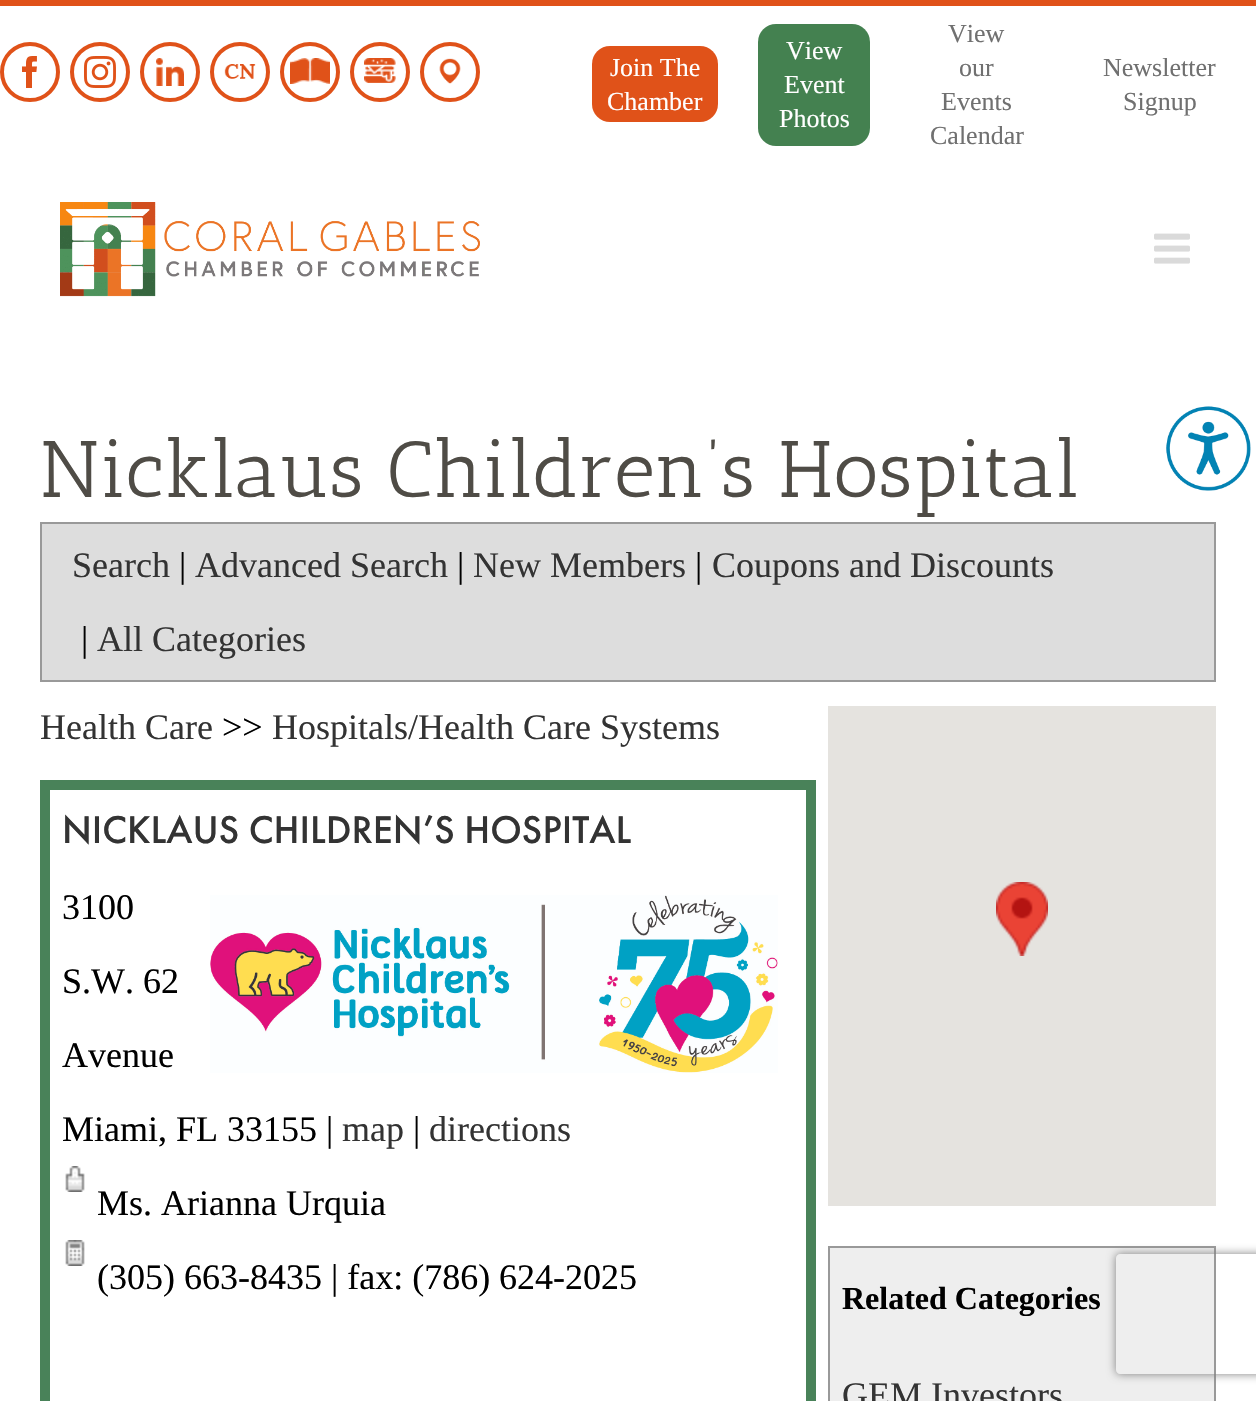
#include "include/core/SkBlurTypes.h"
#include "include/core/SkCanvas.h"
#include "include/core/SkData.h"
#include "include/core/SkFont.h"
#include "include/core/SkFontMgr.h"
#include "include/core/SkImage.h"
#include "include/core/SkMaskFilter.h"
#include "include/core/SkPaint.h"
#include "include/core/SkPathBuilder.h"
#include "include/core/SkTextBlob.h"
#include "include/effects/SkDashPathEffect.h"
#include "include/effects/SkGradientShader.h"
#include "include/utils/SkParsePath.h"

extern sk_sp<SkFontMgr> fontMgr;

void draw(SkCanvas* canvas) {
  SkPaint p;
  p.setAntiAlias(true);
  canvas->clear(SK_ColorWHITE);
  p.setColor(SkColorSetRGB(224, 82, 25));
  canvas->drawRect(SkRect::MakeLTRB(0, 0, 1256, 6), p);
  p.setStyle(SkPaint::kStroke_Style);
  p.setStrokeWidth(4);
  canvas->drawCircle(30, 72, 28, p);
  canvas->drawImageRect(SkImages::DeferredFromEncodedData(SkData::MakeFromFileName("images/1.png")), SkRect::MakeLTRB(22, 56, 37, 88), SkSamplingOptions());
  canvas->drawCircle(100, 72, 28, p);
  canvas->drawImageRect(SkImages::DeferredFromEncodedData(SkData::MakeFromFileName("images/2.png")), SkRect::MakeLTRB(84, 56, 116, 88), SkSamplingOptions());
  canvas->drawCircle(170, 72, 28, p);
  canvas->drawImageRect(SkImages::DeferredFromEncodedData(SkData::MakeFromFileName("images/3.png")), SkRect::MakeLTRB(156, 58, 184, 86), SkSamplingOptions());
  canvas->drawCircle(240, 72, 28, p);
  canvas->drawImageRect(SkImages::DeferredFromEncodedData(SkData::MakeFromFileName("images/4.png")), SkRect::MakeLTRB(224, 64, 256, 79), SkSamplingOptions());
  canvas->drawCircle(310, 72, 28, p);
  canvas->drawImageRect(SkImages::DeferredFromEncodedData(SkData::MakeFromFileName("images/5.png")), SkRect::MakeLTRB(290, 58, 330, 84), SkSamplingOptions());
  canvas->drawCircle(380, 72, 28, p);
  canvas->drawImageRect(SkImages::DeferredFromEncodedData(SkData::MakeFromFileName("images/6.png")), SkRect::MakeLTRB(364, 58, 396, 83), SkSamplingOptions());
  canvas->drawCircle(450, 72, 28, p);
  canvas->drawImageRect(SkImages::DeferredFromEncodedData(SkData::MakeFromFileName("images/7.png")), SkRect::MakeLTRB(439, 58, 461, 84), SkSamplingOptions());
  p.setStyle(SkPaint::kFill_Style);
  canvas->drawRoundRect(SkRect::MakeLTRB(592, 46, 718, 122), 18, 18, p);
  p.setColor(SkColorSetRGB(68, 129, 80));
  canvas->drawRoundRect(SkRect::MakeLTRB(758, 24, 870, 146), 18, 18, p);
  canvas->drawImageRect(SkImages::DeferredFromEncodedData(SkData::MakeFromFileName("images/8.png")), SkRect::MakeLTRB(60, 202, 480, 297), SkSamplingOptions());
  canvas->drawImageRect(SkImages::DeferredFromEncodedData(SkData::MakeFromFileName("images/9.png")), SkRect::MakeLTRB(1154, 233, 1190, 264), SkSamplingOptions());
  p.setColor(SkColorSetRGB(221, 221, 221));
  canvas->drawRect(SkRect::MakeLTRB(41, 523, 1215, 681), p);
  p.setStyle(SkPaint::kStroke_Style);
  p.setStrokeWidth(2);
  p.setColor(SkColorSetRGB(153, 153, 153));
  canvas->drawRect(SkRect::MakeLTRB(41, 523, 1215, 681), p);
  p.setStyle(SkPaint::kFill_Style);
  p.setColor(SkColorSetRGB(73, 130, 89));
  canvas->drawRect(SkRect::MakeLTRB(40, 780, 816, 1401), p);
  p.setColor(SK_ColorWHITE);
  canvas->drawRect(SkRect::MakeLTRB(50, 790, 806, 1401), p);
  canvas->drawImageRect(SkImages::DeferredFromEncodedData(SkData::MakeFromFileName("images/10.png")), SkRect::MakeLTRB(65, 1166, 85, 1192), SkSamplingOptions());
  canvas->drawImageRect(SkImages::DeferredFromEncodedData(SkData::MakeFromFileName("images/11.png")), SkRect::MakeLTRB(65, 1240, 85, 1266), SkSamplingOptions());
  canvas->drawImageRect(SkImages::DeferredFromEncodedData(SkData::MakeFromFileName("images/12.png")), SkRect::MakeLTRB(210, 895, 778, 1073), SkSamplingOptions());
  p.setColor(SkColorSetRGB(229, 227, 223));
  canvas->drawRect(SkRect::MakeLTRB(828, 706, 1216, 1206), p);
  canvas->drawImageRect(SkImages::DeferredFromEncodedData(SkData::MakeFromFileName("images/13.png")), SkRect::MakeLTRB(996, 882, 1048, 956), SkSamplingOptions());
  p.setColor(SkColorSetRGB(238, 238, 238));
  canvas->drawRect(SkRect::MakeLTRB(829, 1247, 1215, 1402), p);
  p.setStyle(SkPaint::kStroke_Style);
  p.setColor(SkColorSetRGB(153, 153, 153));
  canvas->drawRect(SkRect::MakeLTRB(829, 1247, 1215, 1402), p);
  canvas->drawImageRect(SkImages::DeferredFromEncodedData(SkData::MakeFromFileName("images/14.png")), SkRect::MakeLTRB(1166, 406, 1251, 491), SkSamplingOptions());
  canvas->save();
  canvas->clipPath(SkPathBuilder(SkPathFillType::kEvenOdd).moveTo(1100, 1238).lineTo(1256, 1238).lineTo(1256, 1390).lineTo(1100, 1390).close().moveTo(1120, 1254).lineTo(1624, 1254).cubicTo(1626, 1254, 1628, 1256, 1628, 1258).lineTo(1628, 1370).cubicTo(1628, 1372, 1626, 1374, 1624, 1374).lineTo(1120, 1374).cubicTo(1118, 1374, 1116, 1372, 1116, 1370).lineTo(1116, 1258).cubicTo(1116, 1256, 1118, 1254, 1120, 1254).close().detach(), true);
  p.setStyle(SkPaint::kFill_Style);
  p.setColor(SkColorSetRGB(128, 128, 128));
  p.setMaskFilter(SkMaskFilter::MakeBlur(kNormal_SkBlurStyle, 5));
  canvas->drawRoundRect(SkRect::MakeLTRB(1116, 1254, 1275, 1374), 4, 4, p);
  p.setMaskFilter(nullptr);
  canvas->restore();
  SkFont font1(fontMgr->matchFamilyStyle("Liberation Serif", SkFontStyle::Normal()), 26);
  font1.setSubpixel(true);
  p.setColor(SK_ColorWHITE);
  canvas->drawString("Join The", 610, 76, font1, p);
  canvas->drawString("Chamber", 607, 110, font1, p);
  canvas->drawString("View", 786, 59, font1, p);
  canvas->drawString("Event", 784, 93, font1, p);
  canvas->drawString("Photos", 779, 127, font1, p);
  p.setColor(SkColorSetRGB(112, 112, 112));
  canvas->drawString("View", 948, 42, font1, p);
  canvas->drawString("our", 959, 76, font1, p);
  canvas->drawString("Events", 941, 110, font1, p);
  canvas->drawString("Calendar", 930, 144, font1, p);
  canvas->drawString("Newsletter", 1103, 76, font1, p);
  canvas->drawString("Signup", 1123, 110, font1, p);
  SkFont font2(fontMgr->matchFamilyStyle("Antic Slab", SkFontStyle::Normal()), 80);
  font2.setSubpixel(true);
  p.setColor(SkColorSetRGB(79, 76, 70));
  canvas->drawString("Nicklaus Children’s Hospital", 40, 497, font2, p);
  SkFont font3(fontMgr->matchFamilyStyle("Liberation Serif", SkFontStyle::Normal()), 36);
  font3.setSubpixel(true);
  p.setColor(SkColorSetRGB(51, 51, 51));
  canvas->drawString("Search", 72, 577, font3, p);
  p.setColor(SK_ColorBLACK);
  canvas->drawString("|", 179, 577, font3, p);
  p.setColor(SkColorSetRGB(51, 51, 51));
  canvas->drawString("Advanced Search", 195, 577, font3, p);
  p.setColor(SK_ColorBLACK);
  canvas->drawString("|", 457, 577, font3, p);
  p.setColor(SkColorSetRGB(51, 51, 51));
  canvas->drawString("New Members", 473, 577, font3, p);
  p.setColor(SK_ColorBLACK);
  canvas->drawString("|", 695, 577, font3, p);
  p.setColor(SkColorSetRGB(51, 51, 51));
  canvas->drawString("Coupons and Discounts", 712, 577, font3, p);
  p.setColor(SK_ColorBLACK);
  canvas->drawString("|", 81, 651, font3, p);
  p.setColor(SkColorSetRGB(51, 51, 51));
  canvas->drawString("All Categories", 97, 651, font3, p);
  canvas->drawString("Health Care", 40, 739, font3, p);
  p.setColor(SK_ColorBLACK);
  canvas->drawString(">>", 222, 739, font3, p);
  p.setColor(SkColorSetRGB(51, 51, 51));
  canvas->drawString("Hospitals/Health Care Systems", 272, 739, font3, p);
  SkFont font4(fontMgr->matchFamilyStyle("Futura PT", SkFontStyle(500, SkFontStyle::kNormal_Width, SkFontStyle::kUpright_Slant)), 40);
  font4.setSubpixel(true);
  canvas->drawString("NICKLAUS CHILDREN’S HOSPITAL", 62, 843, font4, p);
  p.setColor(SK_ColorBLACK);
  canvas->drawString("3100", 62, 919, font3, p);
  canvas->drawString("S.W. 62", 62, 993, font3, p);
  canvas->drawString("Avenue", 62, 1067, font3, p);
  canvas->drawString("Miami, FL 33155 |", 62, 1141, font3, p);
  p.setColor(SkColorSetRGB(51, 51, 51));
  canvas->drawString("map", 342, 1141, font3, p);
  p.setColor(SK_ColorBLACK);
  canvas->drawString("|", 413, 1141, font3, p);
  p.setColor(SkColorSetRGB(51, 51, 51));
  canvas->drawString("directions", 429, 1141, font3, p);
  p.setColor(SK_ColorBLACK);
  canvas->drawString("Ms. Arianna Urquia", 97, 1215, font3, p);
  canvas->drawString("(305) 663-8435 | fax: (786) 624-2025", 97, 1289, font3, p);
  SkFont font5(fontMgr->matchFamilyStyle("Liberation Serif", SkFontStyle::Bold()), 32);
  font5.setSubpixel(true);
  canvas->drawString("Related Categories", 842, 1309, font5, p);
  p.setColor(SkColorSetRGB(51, 51, 51));
  canvas->drawString("GEM Investors", 842, 1407, font3, p);
}
